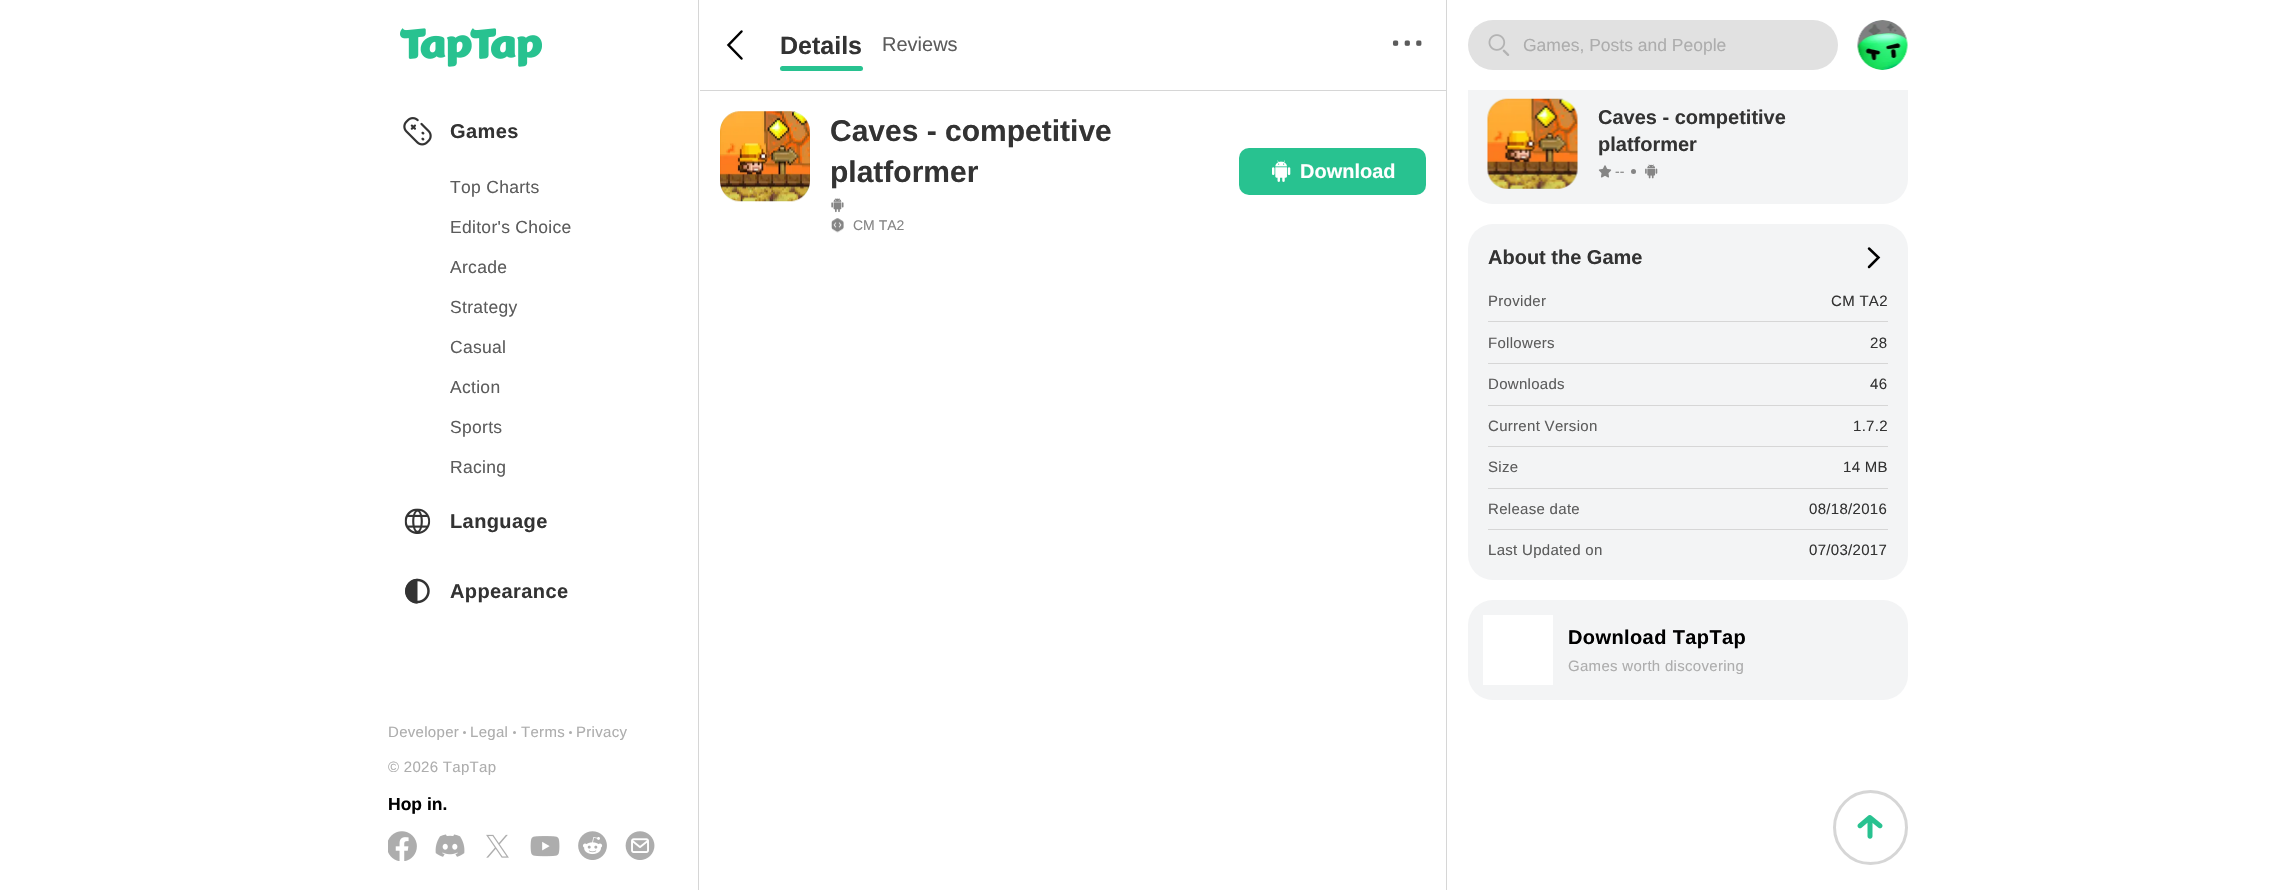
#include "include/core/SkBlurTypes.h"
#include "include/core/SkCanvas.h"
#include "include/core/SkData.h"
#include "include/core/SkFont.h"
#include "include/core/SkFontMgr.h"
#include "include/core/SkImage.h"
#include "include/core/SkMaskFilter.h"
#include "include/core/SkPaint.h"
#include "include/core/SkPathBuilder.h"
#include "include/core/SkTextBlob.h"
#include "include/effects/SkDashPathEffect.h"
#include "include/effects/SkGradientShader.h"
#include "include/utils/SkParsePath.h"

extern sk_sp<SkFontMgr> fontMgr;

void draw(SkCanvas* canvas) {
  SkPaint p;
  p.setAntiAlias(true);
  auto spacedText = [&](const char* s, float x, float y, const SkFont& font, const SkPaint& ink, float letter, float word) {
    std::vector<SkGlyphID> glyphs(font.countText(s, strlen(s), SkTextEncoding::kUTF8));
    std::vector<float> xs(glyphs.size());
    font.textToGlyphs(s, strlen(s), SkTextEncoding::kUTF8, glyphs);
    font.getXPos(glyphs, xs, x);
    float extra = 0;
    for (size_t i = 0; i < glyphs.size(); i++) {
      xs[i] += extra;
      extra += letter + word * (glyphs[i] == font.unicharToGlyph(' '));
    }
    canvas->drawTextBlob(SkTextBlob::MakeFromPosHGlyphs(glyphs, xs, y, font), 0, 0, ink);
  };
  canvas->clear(SK_ColorWHITE);
  canvas->drawImageRect(SkImages::DeferredFromEncodedData(SkData::MakeFromFileName("images/1.png")), SkRect::MakeLTRB(400, 28, 542, 67), SkSamplingOptions());
  canvas->drawImageRect(SkImages::DeferredFromEncodedData(SkData::MakeFromFileName("images/2.png")), SkRect::MakeLTRB(403, 117, 432, 146), SkSamplingOptions());
  canvas->drawImageRect(SkImages::DeferredFromEncodedData(SkData::MakeFromFileName("images/3.png")), SkRect::MakeLTRB(404, 508, 431, 534), SkSamplingOptions());
  canvas->drawImageRect(SkImages::DeferredFromEncodedData(SkData::MakeFromFileName("images/4.png")), SkRect::MakeLTRB(405, 578, 430, 604), SkSamplingOptions());
  p.setColor(SkColorSetRGB(173, 173, 173));
  canvas->drawCircle(464.5f, 732.5f, 1.5f, p);
  canvas->drawCircle(514.5f, 732.5f, 1.5f, p);
  canvas->drawCircle(570.5f, 732.5f, 1.5f, p);
  canvas->drawImageRect(SkImages::DeferredFromEncodedData(SkData::MakeFromFileName("images/5.png")), SkRect::MakeLTRB(388, 831, 417, 861), SkSamplingOptions());
  canvas->drawImageRect(SkImages::DeferredFromEncodedData(SkData::MakeFromFileName("images/6.png")), SkRect::MakeLTRB(435, 834, 465, 857), SkSamplingOptions());
  canvas->drawImageRect(SkImages::DeferredFromEncodedData(SkData::MakeFromFileName("images/7.png")), SkRect::MakeLTRB(486, 834, 509, 858), SkSamplingOptions());
  canvas->drawImageRect(SkImages::DeferredFromEncodedData(SkData::MakeFromFileName("images/8.png")), SkRect::MakeLTRB(530, 836, 560, 857), SkSamplingOptions());
  canvas->drawImageRect(SkImages::DeferredFromEncodedData(SkData::MakeFromFileName("images/9.png")), SkRect::MakeLTRB(578, 831, 607, 860), SkSamplingOptions());
  canvas->drawImageRect(SkImages::DeferredFromEncodedData(SkData::MakeFromFileName("images/10.png")), SkRect::MakeLTRB(625, 831, 655, 860), SkSamplingOptions());
  p.setColor(SkColorSetRGB(214, 214, 214));
  canvas->drawRect(SkRect::MakeLTRB(1446, 0, 1447, 890), p);
  canvas->drawRect(SkRect::MakeLTRB(698, 0, 699, 890), p);
  p.setStyle(SkPaint::kStroke_Style);
  p.setStrokeWidth(2.5f);
  p.setStrokeCap(SkPaint::kRound_Cap);
  p.setColor(SK_ColorBLACK);
  canvas->drawPath(SkPathBuilder().moveTo(741.5f, 58.5f).lineTo(728.5f, 45).lineTo(741.5f, 31.5f).detach(), p);
  p.setStyle(SkPaint::kFill_Style);
  p.setColor(SkColorSetRGB(40, 194, 144));
  canvas->drawRoundRect(SkRect::MakeLTRB(780, 66, 863, 71), 2.5f, 2.5f, p);
  canvas->drawImageRect(SkImages::DeferredFromEncodedData(SkData::MakeFromFileName("images/11.png")), SkRect::MakeLTRB(1392, 40, 1422, 46), SkSamplingOptions());
  p.setColor(SkColorSetRGB(214, 214, 214));
  canvas->drawRect(SkRect::MakeLTRB(700, 90, 1446, 91), p);
  canvas->drawImageRect(SkImages::DeferredFromEncodedData(SkData::MakeFromFileName("images/12.png")), SkRect::MakeLTRB(720, 111, 810, 202), SkSamplingOptions());
  canvas->drawImageRect(SkImages::DeferredFromEncodedData(SkData::MakeFromFileName("images/13.png")), SkRect::MakeLTRB(831, 198, 844, 213), SkSamplingOptions());
  canvas->drawImageRect(SkImages::DeferredFromEncodedData(SkData::MakeFromFileName("images/14.png")), SkRect::MakeLTRB(831, 218, 844, 233), SkSamplingOptions());
  p.setColor(SkColorSetRGB(40, 194, 144));
  canvas->drawRoundRect(SkRect::MakeLTRB(1239, 148, 1426, 195), 10, 10, p);
  canvas->drawImageRect(SkImages::DeferredFromEncodedData(SkData::MakeFromFileName("images/15.png")), SkRect::MakeLTRB(1272, 160, 1291, 182), SkSamplingOptions());
  p.setColor(SkColorSetRGB(243, 244, 245));
  canvas->drawRoundRect(SkRect::MakeLTRB(1468, 36, 1908, 204), 25, 25, p);
  p.setColor(SK_ColorWHITE);
  canvas->drawRect(SkRect::MakeLTRB(1468, 36, 1908, 90), p);
  p.setColor(SkColorSetRGB(225, 225, 225));
  canvas->drawRoundRect(SkRect::MakeLTRB(1468, 20, 1838, 70), 25, 25, p);
  canvas->drawImageRect(SkImages::DeferredFromEncodedData(SkData::MakeFromFileName("images/16.png")), SkRect::MakeLTRB(1488, 34, 1510, 56), SkSamplingOptions());
  canvas->drawImageRect(SkImages::DeferredFromEncodedData(SkData::MakeFromFileName("images/17.png")), SkRect::MakeLTRB(1857, 20, 1908, 70), SkSamplingOptions());
  canvas->drawImageRect(SkImages::DeferredFromEncodedData(SkData::MakeFromFileName("images/18.png")), SkRect::MakeLTRB(1487, 98, 1578, 189), SkSamplingOptions());
  canvas->drawImageRect(SkImages::DeferredFromEncodedData(SkData::MakeFromFileName("images/19.png")), SkRect::MakeLTRB(1598, 165, 1612, 178), SkSamplingOptions());
  p.setColor(SkColorSetRGB(133, 133, 133));
  canvas->drawCircle(1633.5f, 171.5f, 2.5f, p);
  canvas->drawImageRect(SkImages::DeferredFromEncodedData(SkData::MakeFromFileName("images/20.png")), SkRect::MakeLTRB(1645, 164, 1658, 179), SkSamplingOptions());
  p.setColor(SkColorSetRGB(243, 244, 245));
  canvas->drawRoundRect(SkRect::MakeLTRB(1468, 224, 1908, 580), 25, 25, p);
  p.setStyle(SkPaint::kStroke_Style);
  p.setColor(SK_ColorBLACK);
  canvas->drawPath(SkPathBuilder().moveTo(1869, 248.5f).lineTo(1878.5f, 257.5f).lineTo(1869, 267).detach(), p);
  p.setStyle(SkPaint::kFill_Style);
  p.setColor(SkColorSetRGB(214, 214, 214));
  canvas->drawRect(SkRect::MakeLTRB(1488, 321, 1888, 322), p);
  canvas->drawRect(SkRect::MakeLTRB(1488, 363, 1888, 364), p);
  canvas->drawRect(SkRect::MakeLTRB(1488, 405, 1888, 406), p);
  canvas->drawRect(SkRect::MakeLTRB(1488, 446, 1888, 447), p);
  canvas->drawRect(SkRect::MakeLTRB(1488, 488, 1888, 489), p);
  canvas->drawRect(SkRect::MakeLTRB(1488, 529, 1888, 530), p);
  p.setColor(SkColorSetRGB(243, 244, 245));
  canvas->drawRoundRect(SkRect::MakeLTRB(1468, 600, 1908, 700), 25, 25, p);
  p.setColor(SK_ColorWHITE);
  canvas->drawRect(SkRect::MakeLTRB(1483, 615, 1553, 685), p);
  p.setStyle(SkPaint::kStroke_Style);
  p.setStrokeWidth(3);
  p.setStrokeCap(SkPaint::kButt_Cap);
  p.setColor(SkColorSetRGB(214, 214, 214));
  canvas->drawCircle(1870.5f, 827.5f, 36, p);
  canvas->drawImageRect(SkImages::DeferredFromEncodedData(SkData::MakeFromFileName("images/21.png")), SkRect::MakeLTRB(1857, 815, 1883, 839), SkSamplingOptions());
  SkFont font1(fontMgr->matchFamilyStyle("Liberation Sans", SkFontStyle::Bold()), 20);
  font1.setSubpixel(true);
  p.setStyle(SkPaint::kFill_Style);
  p.setColor(SkColorSetRGB(51, 51, 51));
  spacedText("Games", 450, 138, font1, p, 0.4f, 0);
  SkFont font2(fontMgr->matchFamilyStyle("Liberation Sans", SkFontStyle::Normal()), 17.5f);
  font2.setSubpixel(true);
  p.setColor(SkColorSetRGB(92, 92, 92));
  spacedText("Top Charts", 450, 193, font2, p, 0.3f, 0);
  spacedText("Editor's Choice", 450, 233, font2, p, 0.3f, 0);
  spacedText("Arcade", 450, 273, font2, p, 0.3f, 0);
  spacedText("Strategy", 450, 313, font2, p, 0.3f, 0);
  spacedText("Casual", 450, 353, font2, p, 0.3f, 0);
  spacedText("Action", 450, 393, font2, p, 0.3f, 0);
  spacedText("Sports", 450, 433, font2, p, 0.3f, 0);
  spacedText("Racing", 450, 473, font2, p, 0.3f, 0);
  p.setColor(SkColorSetRGB(51, 51, 51));
  spacedText("Language", 450, 528, font1, p, 0.4f, 0);
  spacedText("Appearance", 450, 598, font1, p, 0.4f, 0);
  SkFont font3(fontMgr->matchFamilyStyle("Liberation Sans", SkFontStyle::Normal()), 15);
  font3.setSubpixel(true);
  p.setColor(SkColorSetRGB(173, 173, 173));
  spacedText("Developer", 388, 737, font3, p, 0.3f, 0);
  spacedText("Legal", 470, 737, font3, p, 0.3f, 0);
  spacedText("Terms", 521, 737, font3, p, 0.3f, 0);
  spacedText("Privacy", 576, 737, font3, p, 0.3f, 0);
  canvas->save();
  canvas->clipRect(SkRect::MakeLTRB(388, 0, 678, 890));
  spacedText("© 2026 TapTap", 388, 772, font3, p, 0.3f, 0);
  canvas->restore();
  SkFont font4(fontMgr->matchFamilyStyle("Liberation Sans", SkFontStyle::Bold()), 17.5f);
  font4.setSubpixel(true);
  p.setColor(SK_ColorBLACK);
  canvas->drawString("Hop in.", 388, 810, font4, p);
  SkFont font5(fontMgr->matchFamilyStyle("Liberation Sans", SkFontStyle::Bold()), 25);
  font5.setSubpixel(true);
  p.setColor(SkColorSetRGB(51, 51, 51));
  canvas->drawString("Details", 780, 54, font5, p);
  SkFont font6(fontMgr->matchFamilyStyle("Liberation Sans", SkFontStyle::Normal()), 20);
  font6.setSubpixel(true);
  p.setColor(SkColorSetRGB(92, 92, 92));
  canvas->drawString("Reviews", 882, 51, font6, p);
  SkFont font7(fontMgr->matchFamilyStyle("Liberation Sans", SkFontStyle::Bold()), 30);
  font7.setSubpixel(true);
  p.setColor(SkColorSetRGB(51, 51, 51));
  canvas->drawString("Caves - competitive", 830, 141, font7, p);
  canvas->drawString("platformer", 830, 182, font7, p);
  SkFont font8(fontMgr->matchFamilyStyle("Liberation Sans", SkFontStyle::Normal()), 14);
  font8.setSubpixel(true);
  p.setColor(SkColorSetRGB(133, 133, 133));
  canvas->drawString("CM TA2", 853, 230, font8, p);
  p.setColor(SK_ColorWHITE);
  canvas->drawString("Download", 1300, 178, font1, p);
  p.setColor(SkColorSetRGB(173, 173, 173));
  canvas->drawString("Games, Posts and People", 1523, 51, font2, p);
  p.setColor(SkColorSetRGB(51, 51, 51));
  canvas->drawString("Caves - competitive", 1598, 124, font1, p);
  canvas->drawString("platformer", 1598, 151, font1, p);
  p.setColor(SkColorSetRGB(133, 133, 133));
  canvas->drawString("--", 1615, 176, font8, p);
  p.setColor(SkColorSetRGB(51, 51, 51));
  canvas->drawString("About the Game", 1488, 264, font1, p);
  p.setColor(SkColorSetRGB(92, 92, 92));
  spacedText("Provider", 1488, 306, font3, p, 0.3f, 0);
  p.setColor(SkColorSetRGB(51, 51, 51));
  spacedText("CM TA2", 1831, 306, font3, p, 0.3f, 0);
  p.setColor(SkColorSetRGB(92, 92, 92));
  spacedText("Followers", 1488, 348, font3, p, 0.3f, 0);
  p.setColor(SkColorSetRGB(51, 51, 51));
  spacedText("28", 1870, 348, font3, p, 0.3f, 0);
  p.setColor(SkColorSetRGB(92, 92, 92));
  spacedText("Downloads", 1488, 389, font3, p, 0.3f, 0);
  p.setColor(SkColorSetRGB(51, 51, 51));
  spacedText("46", 1870, 389, font3, p, 0.3f, 0);
  p.setColor(SkColorSetRGB(92, 92, 92));
  spacedText("Current Version", 1488, 431, font3, p, 0.3f, 0);
  p.setColor(SkColorSetRGB(51, 51, 51));
  spacedText("1.7.2", 1853, 431, font3, p, 0.3f, 0);
  p.setColor(SkColorSetRGB(92, 92, 92));
  spacedText("Size", 1488, 472, font3, p, 0.3f, 0);
  p.setColor(SkColorSetRGB(51, 51, 51));
  spacedText("14 MB", 1843, 472, font3, p, 0.3f, 0);
  p.setColor(SkColorSetRGB(92, 92, 92));
  spacedText("Release date", 1488, 514, font3, p, 0.3f, 0);
  p.setColor(SkColorSetRGB(51, 51, 51));
  spacedText("08/18/2016", 1809, 514, font3, p, 0.3f, 0);
  p.setColor(SkColorSetRGB(92, 92, 92));
  spacedText("Last Updated on", 1488, 555, font3, p, 0.3f, 0);
  p.setColor(SkColorSetRGB(51, 51, 51));
  spacedText("07/03/2017", 1809, 555, font3, p, 0.3f, 0);
  p.setColor(SK_ColorBLACK);
  spacedText("Download TapTap", 1568, 644, font1, p, 0.4f, 0);
  p.setColor(SkColorSetRGB(173, 173, 173));
  spacedText("Games worth discovering", 1568, 671, font3, p, 0.3f, 0);
}
